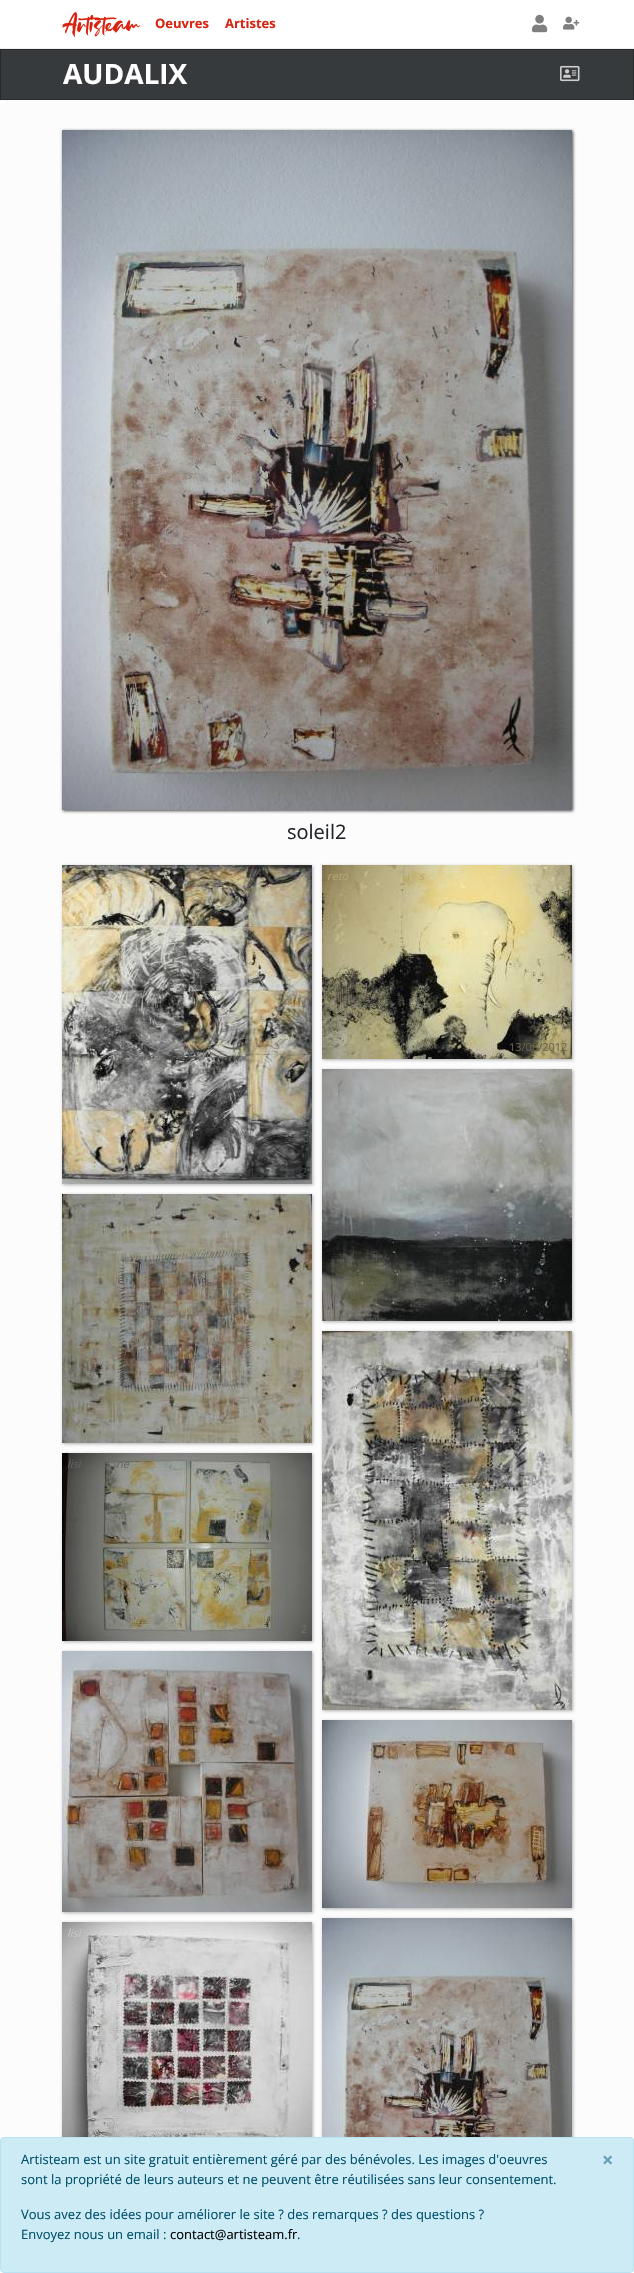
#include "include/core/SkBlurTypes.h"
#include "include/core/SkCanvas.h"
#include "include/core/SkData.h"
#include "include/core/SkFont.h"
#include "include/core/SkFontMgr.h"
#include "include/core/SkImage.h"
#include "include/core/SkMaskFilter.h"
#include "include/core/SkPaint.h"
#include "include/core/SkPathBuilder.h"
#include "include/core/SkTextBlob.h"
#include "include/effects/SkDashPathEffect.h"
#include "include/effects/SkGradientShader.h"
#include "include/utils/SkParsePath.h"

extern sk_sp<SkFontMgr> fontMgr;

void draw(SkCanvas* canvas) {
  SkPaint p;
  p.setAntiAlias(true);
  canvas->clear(SkColorSetRGB(252, 252, 252));
  p.setColor(SK_ColorWHITE);
  canvas->drawRect(SkRect::MakeLTRB(0, 0, 634, 48), p);
  p.setColor(SkColorSetRGB(238, 238, 238));
  canvas->drawRect(SkRect::MakeLTRB(0, 48, 634, 49), p);
  canvas->drawImageRect(SkImages::DeferredFromEncodedData(SkData::MakeFromFileName("images/1.png")), SkRect::MakeLTRB(532, 14, 548, 33), SkSamplingOptions());
  canvas->drawImageRect(SkImages::DeferredFromEncodedData(SkData::MakeFromFileName("images/2.png")), SkRect::MakeLTRB(563, 16, 580, 30), SkSamplingOptions());
  p.setColor(SkColorSetRGB(55, 58, 60));
  canvas->drawRect(SkRect::MakeLTRB(0.5f, 49.5f, 633.5f, 99.5f), p);
  p.setStyle(SkPaint::kStroke_Style);
  p.setStrokeWidth(1);
  p.setColor(SkColorSetRGB(39, 41, 43));
  canvas->drawRect(SkRect::MakeLTRB(0.5f, 49.5f, 633.5f, 99.5f), p);
  canvas->drawImageRect(SkImages::DeferredFromEncodedData(SkData::MakeFromFileName("images/3.png")), SkRect::MakeLTRB(560, 65, 580, 82), SkSamplingOptions());
  p.setStyle(SkPaint::kFill_Style);
  p.setColor(SkColorSetARGB(184, 0, 0, 0));
  p.setMaskFilter(SkMaskFilter::MakeBlur(kNormal_SkBlurStyle, 1.5f));
  canvas->drawRect(SkRect::MakeLTRB(63, 131, 573, 811), p);
  p.setMaskFilter(nullptr);
  canvas->drawImageRect(SkImages::DeferredFromEncodedData(SkData::MakeFromFileName("images/4.png")), SkRect::MakeLTRB(62, 130, 572, 810), SkSamplingOptions());
  p.setColor(SkColorSetARGB(79, 0, 0, 0));
  p.setMaskFilter(SkMaskFilter::MakeBlur(kNormal_SkBlurStyle, 1.5f));
  canvas->drawRect(SkRect::MakeLTRB(323, 866, 573, 1060), p);
  p.setMaskFilter(nullptr);
  canvas->drawImageRect(SkImages::DeferredFromEncodedData(SkData::MakeFromFileName("images/5.png")), SkRect::MakeLTRB(322, 865, 572, 1059), SkSamplingOptions());
  p.setMaskFilter(SkMaskFilter::MakeBlur(kNormal_SkBlurStyle, 1.5f));
  canvas->drawRect(SkRect::MakeLTRB(63, 866, 313, 1185), p);
  p.setMaskFilter(nullptr);
  canvas->drawImageRect(SkImages::DeferredFromEncodedData(SkData::MakeFromFileName("images/6.png")), SkRect::MakeLTRB(62, 865, 312, 1184), SkSamplingOptions());
  p.setMaskFilter(SkMaskFilter::MakeBlur(kNormal_SkBlurStyle, 1.5f));
  canvas->drawRect(SkRect::MakeLTRB(323, 1070, 573, 1322), p);
  p.setMaskFilter(nullptr);
  canvas->drawImageRect(SkImages::DeferredFromEncodedData(SkData::MakeFromFileName("images/7.png")), SkRect::MakeLTRB(322, 1069, 572, 1321), SkSamplingOptions());
  p.setMaskFilter(SkMaskFilter::MakeBlur(kNormal_SkBlurStyle, 1.5f));
  canvas->drawRect(SkRect::MakeLTRB(63, 1195, 313, 1444), p);
  p.setMaskFilter(nullptr);
  canvas->drawImageRect(SkImages::DeferredFromEncodedData(SkData::MakeFromFileName("images/8.png")), SkRect::MakeLTRB(62, 1194, 312, 1443), SkSamplingOptions());
  p.setMaskFilter(SkMaskFilter::MakeBlur(kNormal_SkBlurStyle, 1.5f));
  canvas->drawRect(SkRect::MakeLTRB(323, 1332, 573, 1711), p);
  p.setMaskFilter(nullptr);
  canvas->drawImageRect(SkImages::DeferredFromEncodedData(SkData::MakeFromFileName("images/9.png")), SkRect::MakeLTRB(322, 1331, 572, 1710), SkSamplingOptions());
  p.setMaskFilter(SkMaskFilter::MakeBlur(kNormal_SkBlurStyle, 1.5f));
  canvas->drawRect(SkRect::MakeLTRB(63, 1454, 313, 1642), p);
  p.setMaskFilter(nullptr);
  canvas->drawImageRect(SkImages::DeferredFromEncodedData(SkData::MakeFromFileName("images/10.png")), SkRect::MakeLTRB(62, 1453, 312, 1641), SkSamplingOptions());
  p.setMaskFilter(SkMaskFilter::MakeBlur(kNormal_SkBlurStyle, 1.5f));
  canvas->drawRect(SkRect::MakeLTRB(63, 1652, 313, 1913), p);
  p.setMaskFilter(nullptr);
  canvas->drawImageRect(SkImages::DeferredFromEncodedData(SkData::MakeFromFileName("images/11.png")), SkRect::MakeLTRB(62, 1651, 312, 1912), SkSamplingOptions());
  p.setMaskFilter(SkMaskFilter::MakeBlur(kNormal_SkBlurStyle, 1.5f));
  canvas->drawRect(SkRect::MakeLTRB(323, 1721, 573, 1909), p);
  p.setMaskFilter(nullptr);
  canvas->drawImageRect(SkImages::DeferredFromEncodedData(SkData::MakeFromFileName("images/12.png")), SkRect::MakeLTRB(322, 1720, 572, 1908), SkSamplingOptions());
  p.setMaskFilter(SkMaskFilter::MakeBlur(kNormal_SkBlurStyle, 1.5f));
  canvas->drawRect(SkRect::MakeLTRB(63, 1923, 313, 2150), p);
  p.setMaskFilter(nullptr);
  canvas->drawImageRect(SkImages::DeferredFromEncodedData(SkData::MakeFromFileName("images/13.png")), SkRect::MakeLTRB(62, 1922, 312, 2137), SkSamplingOptions());
  p.setMaskFilter(SkMaskFilter::MakeBlur(kNormal_SkBlurStyle, 1.5f));
  canvas->drawRect(SkRect::MakeLTRB(323, 1919, 573, 2252), p);
  p.setMaskFilter(nullptr);
  canvas->drawImageRect(SkImages::DeferredFromEncodedData(SkData::MakeFromFileName("images/14.png")), SkRect::MakeLTRB(322, 1918, 572, 2137), SkSamplingOptions());
  p.setColor(SK_ColorWHITE);
  canvas->drawRect(SkRect::MakeLTRB(0, 2269, 634, 2273), p);
  p.setColor(SkColorSetRGB(204, 235, 245));
  canvas->drawRoundRect(SkRect::MakeLTRB(0.5f, 2137.5f, 633.5f, 2272.5f), 3.5f, 3.5f, p);
  p.setStyle(SkPaint::kStroke_Style);
  p.setColor(SkColorSetRGB(184, 227, 242));
  canvas->drawRoundRect(SkRect::MakeLTRB(0.5f, 2137.5f, 633.5f, 2272.5f), 3.5f, 3.5f, p);
  SkFont font1(fontMgr->matchFamilyStyle("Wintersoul", SkFontStyle::Normal()), 30);
  font1.setSubpixel(true);
  p.setStyle(SkPaint::kFill_Style);
  p.setColor(SkColorSetRGB(217, 35, 15));
  canvas->drawString("Artisteam", 62, 33, font1, p);
  SkFont font2(fontMgr->matchFamilyStyle("Open Sans", SkFontStyle::Bold()), 13);
  font2.setSubpixel(true);
  canvas->drawString("Oeuvres", 155, 28, font2, p);
  canvas->drawString("Artistes", 225, 28, font2, p);
  SkFont font3(fontMgr->matchFamilyStyle("Open Sans", SkFontStyle::Bold()), 28);
  font3.setSubpixel(true);
  p.setColor(SK_ColorWHITE);
  canvas->drawString("AUDALIX", 63, 84, font3, p);
  SkFont font4(fontMgr->matchFamilyStyle("Open Sans", SkFontStyle::Normal()), 20);
  font4.setSubpixel(true);
  p.setColor(SkColorSetRGB(33, 37, 41));
  canvas->drawString("soleil2", 287, 839, font4, p);
  SkFont font5(fontMgr->matchFamilyStyle("Open Sans", SkFontStyle::Italic()), 11);
  font5.setSubpixel(true);
  p.setColor(SkColorSetRGB(179, 167, 119));
  canvas->drawString("reto", 327, 880, font5, p);
  canvas->drawString("s", 419, 880, font5, p);
  SkFont font6(fontMgr->matchFamilyStyle("Open Sans", SkFontStyle::Normal()), 11);
  font6.setSubpixel(true);
  p.setColor(SkColorSetRGB(105, 99, 73));
  canvas->drawString("13/08/2012", 509, 1051, font6, p);
  p.setColor(SkColorSetRGB(63, 64, 64));
  canvas->drawString("1", 249, 1176, font6, p);
  canvas->drawString("2", 301, 1176, font6, p);
  p.setColor(SkColorSetRGB(100, 101, 96));
  canvas->drawString("lisi", 67, 1468, font5, p);
  canvas->drawString("ne", 116, 1468, font5, p);
  p.setColor(SkColorSetRGB(114, 114, 106));
  canvas->drawString("2", 301, 1633, font6, p);
  p.setColor(SkColorSetRGB(199, 199, 199));
  canvas->drawString("lisi", 67, 1937, font5, p);
  SkFont font7(fontMgr->matchFamilyStyle("Open Sans", SkFontStyle::Normal()), 13);
  font7.setSubpixel(true);
  p.setColor(SkColorSetRGB(1, 80, 108));
  canvas->drawString("Artisteam est un site gratuit entièrement géré par des bénévoles. Les images d'oeuvres", 21, 2164, font7, p);
  canvas->drawString("sont la propriété de leurs auteurs et ne peuvent être réutilisées sans leur consentement.", 21, 2184, font7, p);
  SkFont font8(fontMgr->matchFamilyStyle("Open Sans", SkFontStyle::Bold()), 20);
  font8.setSubpixel(true);
  p.setColor(SkColorSetRGB(103, 158, 177));
  canvas->drawString("×", 602, 2167, font8, p);
  p.setColor(SkColorSetRGB(1, 80, 108));
  canvas->drawString("Vous avez des idées pour améliorer le site ? des remarques ? des questions ?", 21, 2219, font7, p);
  canvas->drawString("Envoyez nous un email :", 21, 2239, font7, p);
  p.setColor(SK_ColorBLACK);
  canvas->drawString("contact@artisteam.fr", 170, 2239, font7, p);
  p.setColor(SkColorSetRGB(1, 80, 108));
  canvas->drawString(".", 297, 2239, font7, p);
}
